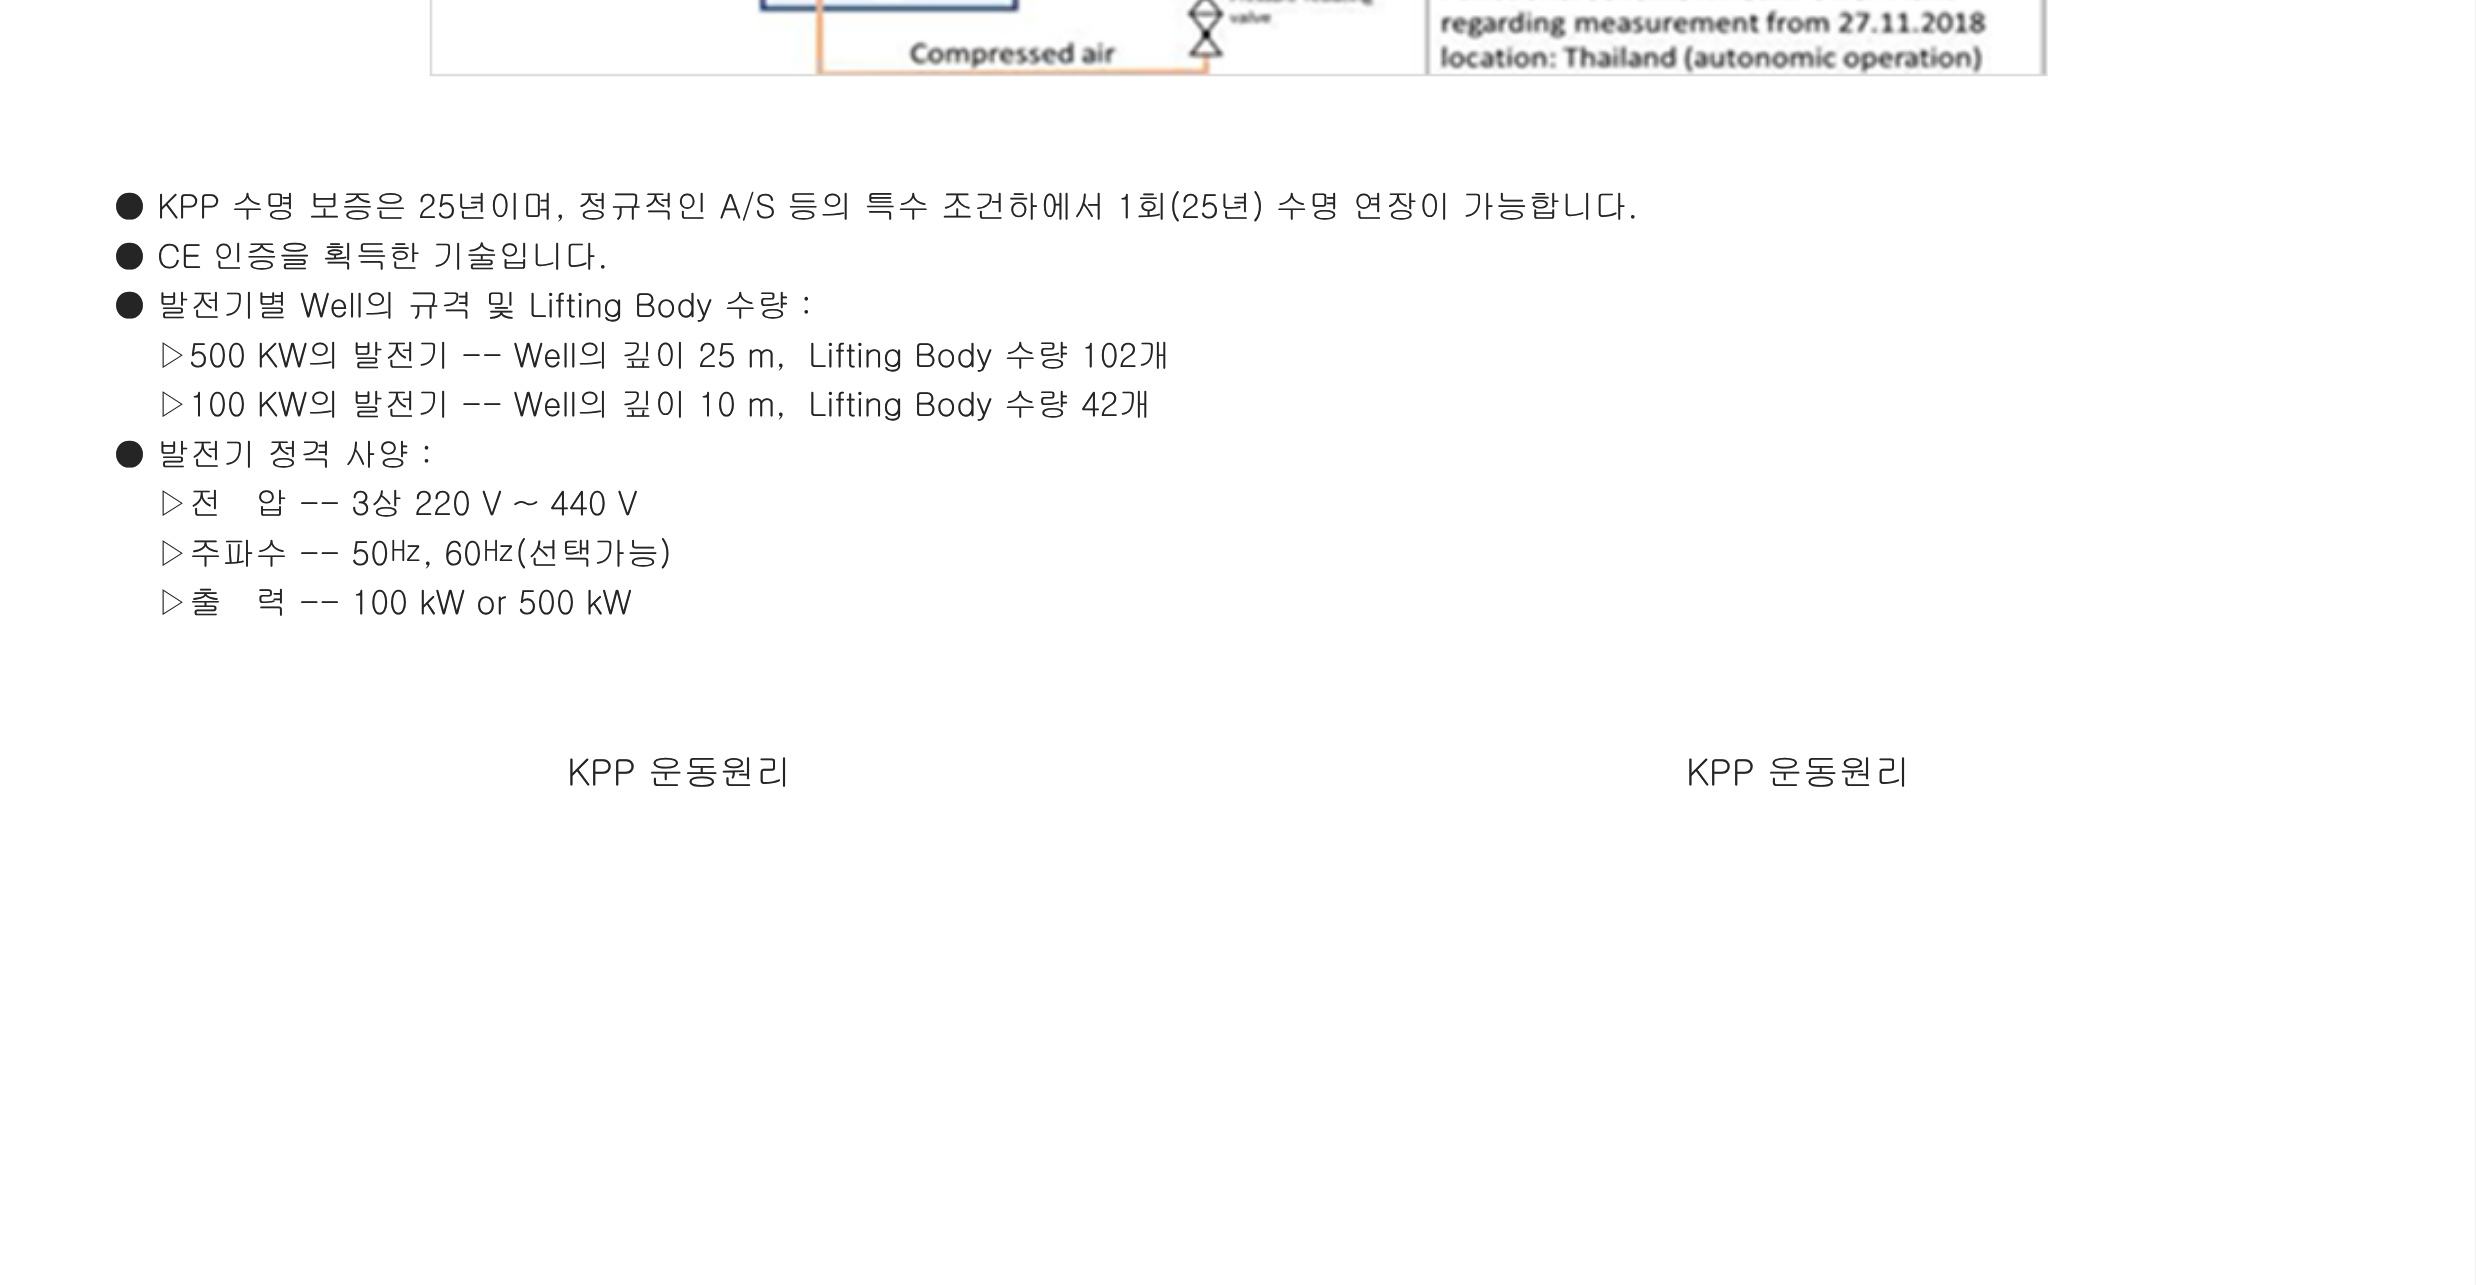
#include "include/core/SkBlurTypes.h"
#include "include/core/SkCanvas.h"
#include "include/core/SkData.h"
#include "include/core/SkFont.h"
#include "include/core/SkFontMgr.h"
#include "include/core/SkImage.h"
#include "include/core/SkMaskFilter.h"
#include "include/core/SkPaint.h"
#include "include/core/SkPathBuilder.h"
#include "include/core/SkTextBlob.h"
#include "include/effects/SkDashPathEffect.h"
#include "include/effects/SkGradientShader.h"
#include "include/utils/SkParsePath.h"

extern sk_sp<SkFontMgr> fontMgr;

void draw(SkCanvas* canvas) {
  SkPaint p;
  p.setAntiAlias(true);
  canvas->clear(SK_ColorWHITE);
  p.setColor(SkColorSetRGB(241, 241, 241));
  canvas->drawRect(SkRect::MakeLTRB(2475, 0, 2476, 1285), p);
  canvas->drawImageRect(SkImages::DeferredFromEncodedData(SkData::MakeFromFileName("images/1.png")), SkRect::MakeLTRB(429, 0, 2048, 77), SkSamplingOptions());
  SkFont font1(fontMgr->matchFamilyStyle("Gulim", SkFontStyle::Normal()), 33);
  font1.setSubpixel(true);
  p.setColor(SkColorSetRGB(37, 37, 37));
  canvas->drawString("● KPP 수명 보증은 25년이며, 정규적인 A/S 등의 특수 조건하에서 1회(25년) 수명 연장이 가능합니다.", 113, 218, font1, p);
  canvas->drawString("● CE 인증을 획득한 기술입니다.", 113, 268, font1, p);
  canvas->drawString("● 발전기별 Well의 규격 및 Lifting Body 수량 :", 113, 317, font1, p);
  canvas->drawString("▷500 KW의 발전기 -- Well의 깊이 25 m,  Lifting Body 수량 102개", 156, 367, font1, p);
  canvas->drawString("▷100 KW의 발전기 -- Well의 깊이 10 m,  Lifting Body 수량 42개", 156, 416, font1, p);
  canvas->drawString("● 발전기 정격 사양 :", 113, 466, font1, p);
  canvas->drawString("▷전   압 -- 3상 220 V ~ 440 V", 156, 515, font1, p);
  canvas->drawString("▷주파수 -- 50㎐, 60㎐(선택가능)", 156, 565, font1, p);
  canvas->drawString("▷출   력 -- 100 kW or 500 kW", 156, 614, font1, p);
  SkFont font2(fontMgr->matchFamilyStyle("Gulim", SkFontStyle::Normal()), 36);
  font2.setSubpixel(true);
  canvas->drawString("KPP 운동원리", 567, 785, font2, p);
  canvas->drawString("KPP 운동원리", 1686, 785, font2, p);
}
